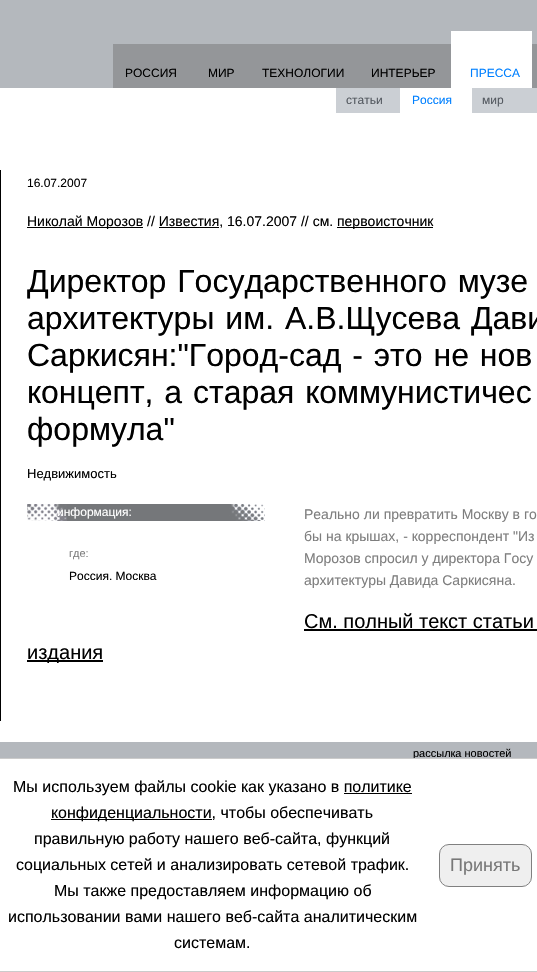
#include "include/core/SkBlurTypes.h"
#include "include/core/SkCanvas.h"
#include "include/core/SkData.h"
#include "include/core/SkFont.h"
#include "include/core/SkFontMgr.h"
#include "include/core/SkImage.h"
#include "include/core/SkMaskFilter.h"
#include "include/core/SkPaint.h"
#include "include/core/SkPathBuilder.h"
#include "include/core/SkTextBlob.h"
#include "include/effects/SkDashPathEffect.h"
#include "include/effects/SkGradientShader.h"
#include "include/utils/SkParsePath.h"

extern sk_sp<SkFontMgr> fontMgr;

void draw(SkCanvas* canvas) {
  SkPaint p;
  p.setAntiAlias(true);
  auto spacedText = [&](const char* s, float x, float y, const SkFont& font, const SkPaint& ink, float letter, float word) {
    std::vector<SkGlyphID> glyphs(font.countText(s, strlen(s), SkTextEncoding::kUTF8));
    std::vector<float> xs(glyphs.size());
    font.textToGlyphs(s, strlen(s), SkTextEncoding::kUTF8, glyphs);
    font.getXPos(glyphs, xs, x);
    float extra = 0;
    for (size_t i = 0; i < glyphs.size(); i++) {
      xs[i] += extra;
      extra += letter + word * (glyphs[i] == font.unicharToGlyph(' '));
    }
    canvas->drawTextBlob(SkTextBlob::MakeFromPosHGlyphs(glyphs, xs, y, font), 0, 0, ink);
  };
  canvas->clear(SkColorSetRGB(180, 184, 189));
  p.setColor(SkColorSetRGB(148, 150, 153));
  canvas->drawRect(SkRect::MakeLTRB(113, 44, 451, 88), p);
  p.setColor(SK_ColorWHITE);
  canvas->drawRect(SkRect::MakeLTRB(451, 31, 532, 88), p);
  canvas->drawRect(SkRect::MakeLTRB(0, 88, 537, 742), p);
  p.setColor(SkColorSetRGB(203, 207, 212));
  canvas->drawRect(SkRect::MakeLTRB(336, 88, 400, 113), p);
  canvas->drawRect(SkRect::MakeLTRB(472, 88, 537, 113), p);
  p.setColor(SkColorSetRGB(148, 150, 153));
  canvas->drawRect(SkRect::MakeLTRB(532, 44, 537, 88), p);
  p.setColor(SK_ColorBLACK);
  canvas->drawRect(SkRect::MakeLTRB(0, 170, 1, 721), p);
  canvas->drawRect(SkRect::MakeLTRB(27, 227, 143, 228), p);
  canvas->drawRect(SkRect::MakeLTRB(337, 227, 433, 228), p);
  canvas->drawRect(SkRect::MakeLTRB(159, 227, 219, 228), p);
  canvas->drawImageRect(SkImages::DeferredFromEncodedData(SkData::MakeFromFileName("images/1.png")), SkRect::MakeLTRB(27, 504, 265, 521), SkSamplingOptions());
  canvas->drawRect(SkRect::MakeLTRB(304, 629, 537, 631), p);
  canvas->drawRect(SkRect::MakeLTRB(27, 660, 103, 662), p);
  SkFont font1(fontMgr->matchFamilyStyle("Liberation Sans", SkFontStyle::Normal()), 12);
  font1.setSubpixel(true);
  canvas->drawString("РОССИЯ", 125, 77, font1, p);
  canvas->drawString("МИР", 208, 77, font1, p);
  canvas->drawString("ТЕХНОЛОГИИ", 262, 77, font1, p);
  p.setColor(SkColorSetRGB(0, 128, 255));
  canvas->drawString("ПРЕССА", 470, 77, font1, p);
  p.setColor(SkColorSetRGB(84, 89, 96));
  canvas->drawString("статьи", 346, 104, font1, p);
  p.setColor(SkColorSetRGB(0, 128, 255));
  canvas->drawString("Россия", 412, 104, font1, p);
  p.setColor(SkColorSetRGB(84, 89, 96));
  canvas->drawString("мир", 482, 104, font1, p);
  p.setColor(SK_ColorBLACK);
  canvas->drawString("ИНТЕРЬЕР", 371, 77, font1, p);
  canvas->drawString("16.07.2007", 27, 187, font1, p);
  SkFont font2(fontMgr->matchFamilyStyle("Liberation Sans", SkFontStyle::Normal()), 14);
  font2.setSubpixel(true);
  canvas->drawString("Николай Морозов // Известия, 16.07.2007 // см.", 27, 226, font2, p);
  canvas->drawString("первоисточник", 337, 226, font2, p);
  SkFont font3(fontMgr->matchFamilyStyle("Liberation Sans", SkFontStyle::Normal()), 32);
  font3.setSubpixel(true);
  spacedText("Директор Государственного музе", 27, 292, font3, p, 0, 2);
  spacedText("архитектуры им. А.В.Щусева Дави", 27, 329, font3, p, 0, 2);
  spacedText("Саркисян:\"Город-сад - это не нов", 27, 366, font3, p, 0, 2);
  spacedText("концепт, а старая коммунистичес", 27, 403, font3, p, 0, 2);
  canvas->drawString("формула\"", 27, 440, font3, p);
  SkFont font4(fontMgr->matchFamilyStyle("Liberation Sans", SkFontStyle::Normal()), 13);
  font4.setSubpixel(true);
  canvas->drawString("Недвижимость", 27, 478, font4, p);
  p.setColor(SK_ColorWHITE);
  canvas->drawString("информация:", 57, 516, font1, p);
  SkFont font5(fontMgr->matchFamilyStyle("Liberation Sans", SkFontStyle::Normal()), 11);
  font5.setSubpixel(true);
  p.setColor(SkColorSetRGB(126, 126, 126));
  canvas->drawString("где:", 69, 557, font5, p);
  p.setColor(SK_ColorBLACK);
  canvas->drawString("Россия. Москва", 69, 580, font1, p);
  p.setColor(SkColorSetRGB(126, 126, 126));
  canvas->drawString("Реально ли превратить Москву в го", 304, 519, font2, p);
  canvas->drawString("бы на крышах, - корреспондент \"Из", 304, 541, font2, p);
  canvas->drawString("Морозов спросил у директора Госу", 304, 563, font2, p);
  canvas->drawString("архитектуры Давида Саркисяна.", 304, 585, font2, p);
  SkFont font6(fontMgr->matchFamilyStyle("Liberation Sans", SkFontStyle::Normal()), 20);
  font6.setSubpixel(true);
  p.setColor(SK_ColorBLACK);
  canvas->drawString("См. полный текст статьи", 304, 628, font6, p);
  canvas->drawString("издания", 27, 659, font6, p);
  canvas->drawString("рассылка новостей", 413, 757, font5, p);
  p.setColor(SK_ColorWHITE);
  canvas->drawRect(SkRect::MakeLTRB(-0.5f, 758.5f, 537.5f, 971.5f), p);
  p.setStyle(SkPaint::kStroke_Style);
  p.setStrokeWidth(1);
  p.setColor(SkColorSetRGB(203, 203, 203));
  canvas->drawRect(SkRect::MakeLTRB(-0.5f, 758.5f, 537.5f, 971.5f), p);
  SkFont font7(fontMgr->matchFamilyStyle("Liberation Sans", SkFontStyle::Normal()), 16);
  font7.setSubpixel(true);
  p.setStyle(SkPaint::kFill_Style);
  p.setColor(SK_ColorBLACK);
  canvas->drawString("Мы используем файлы cookie как указано в политике", 13, 792, font7, p);
  canvas->drawRect(SkRect::MakeLTRB(344, 793, 412, 794), p);
  canvas->drawRect(SkRect::MakeLTRB(51, 819, 212, 820), p);
  canvas->drawString("конфиденциальности, чтобы обеспечивать", 51, 818, font7, p);
  canvas->drawString("правильную работу нашего веб-сайта, функций", 34, 844, font7, p);
  canvas->drawString("социальных сетей и анализировать сетевой трафик.", 16, 870, font7, p);
  canvas->drawString("Мы также предоставляем информацию об", 54, 896, font7, p);
  canvas->drawString("использовании вами нашего веб-сайта аналитическим", 8, 922, font7, p);
  canvas->drawString("системам.", 174, 948, font7, p);
  p.setColor(SkColorSetRGB(239, 239, 239));
  canvas->drawRoundRect(SkRect::MakeLTRB(439.5f, 844.5f, 531.5f, 886.5f), 9.5f, 9.5f, p);
  p.setStyle(SkPaint::kStroke_Style);
  p.setColor(SkColorSetRGB(128, 128, 128));
  canvas->drawRoundRect(SkRect::MakeLTRB(439.5f, 844.5f, 531.5f, 886.5f), 9.5f, 9.5f, p);
  SkFont font8(fontMgr->matchFamilyStyle("Liberation Sans", SkFontStyle::Normal()), 18);
  font8.setSubpixel(true);
  p.setStyle(SkPaint::kFill_Style);
  p.setColor(SkColorSetRGB(120, 120, 120));
  canvas->drawString("Принять", 450, 871, font8, p);
}
